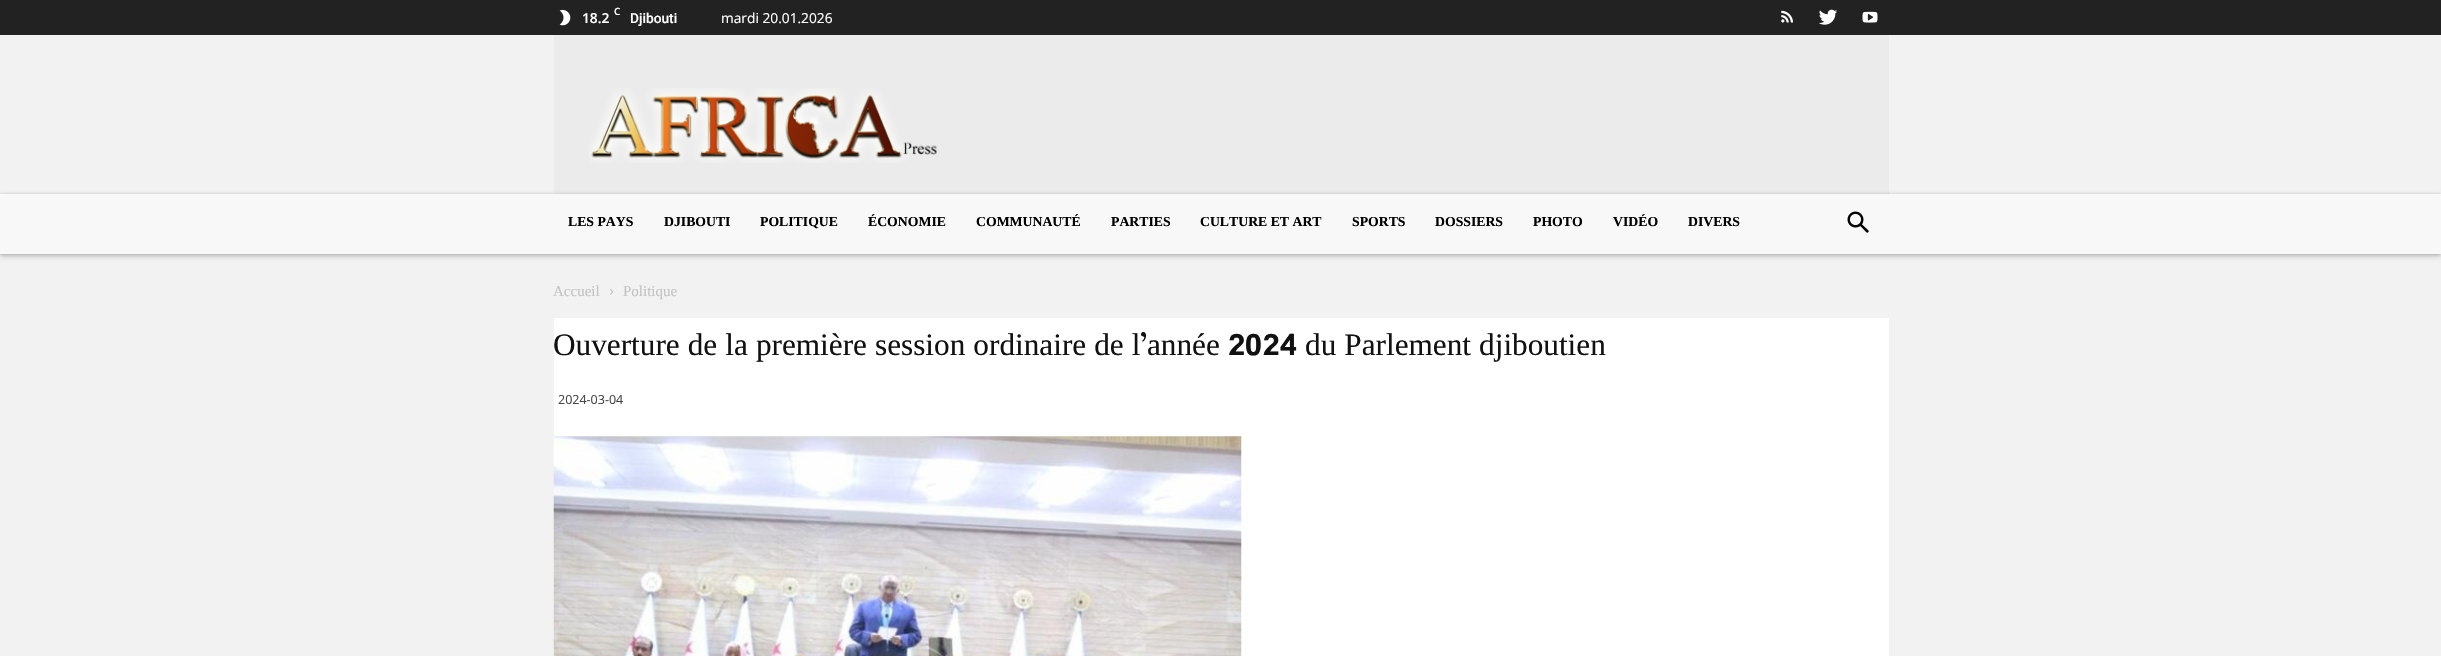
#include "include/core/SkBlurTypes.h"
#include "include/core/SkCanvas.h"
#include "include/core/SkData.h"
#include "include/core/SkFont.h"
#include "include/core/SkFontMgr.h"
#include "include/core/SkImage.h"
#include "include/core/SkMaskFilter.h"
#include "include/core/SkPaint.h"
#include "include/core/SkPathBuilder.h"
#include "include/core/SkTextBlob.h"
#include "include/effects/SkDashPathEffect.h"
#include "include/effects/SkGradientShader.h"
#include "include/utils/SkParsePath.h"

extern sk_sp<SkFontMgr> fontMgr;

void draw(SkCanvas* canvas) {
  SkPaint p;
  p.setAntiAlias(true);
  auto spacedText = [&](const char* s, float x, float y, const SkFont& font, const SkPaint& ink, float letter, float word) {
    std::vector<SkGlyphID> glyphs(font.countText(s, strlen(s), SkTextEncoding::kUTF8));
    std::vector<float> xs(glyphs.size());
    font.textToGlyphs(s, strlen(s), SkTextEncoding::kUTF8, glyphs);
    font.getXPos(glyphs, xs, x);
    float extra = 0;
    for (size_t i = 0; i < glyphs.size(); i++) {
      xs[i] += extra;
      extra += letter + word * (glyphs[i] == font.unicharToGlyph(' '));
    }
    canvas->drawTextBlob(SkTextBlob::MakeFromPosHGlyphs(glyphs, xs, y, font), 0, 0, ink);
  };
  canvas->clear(SkColorSetRGB(242, 242, 242));
  p.setColor(SkColorSetRGB(34, 34, 34));
  canvas->drawRect(SkRect::MakeLTRB(0, 0, 2441, 35), p);
  canvas->drawImageRect(SkImages::DeferredFromEncodedData(SkData::MakeFromFileName("images/1.png")), SkRect::MakeLTRB(559, 9, 571, 26), SkSamplingOptions());
  canvas->drawImageRect(SkImages::DeferredFromEncodedData(SkData::MakeFromFileName("images/2.png")), SkRect::MakeLTRB(1781, 10, 1793, 23), SkSamplingOptions());
  canvas->drawImageRect(SkImages::DeferredFromEncodedData(SkData::MakeFromFileName("images/3.png")), SkRect::MakeLTRB(1819, 9, 1837, 25), SkSamplingOptions());
  canvas->drawImageRect(SkImages::DeferredFromEncodedData(SkData::MakeFromFileName("images/4.png")), SkRect::MakeLTRB(1862, 11, 1878, 23), SkSamplingOptions());
  p.setColor(SkColorSetRGB(235, 235, 235));
  canvas->drawRect(SkRect::MakeLTRB(554, 35, 1889, 194), p);
  canvas->drawImageRect(SkImages::DeferredFromEncodedData(SkData::MakeFromFileName("images/5.png")), SkRect::MakeLTRB(589, 88, 937, 163), SkSamplingOptions());
  p.setColor(SkColorSetARGB(61, 0, 0, 0));
  p.setMaskFilter(SkMaskFilter::MakeBlur(kNormal_SkBlurStyle, 2.5f));
  canvas->drawRect(SkRect::MakeLTRB(0, 196, 2441, 256), p);
  p.setMaskFilter(nullptr);
  p.setColor(SkColorSetARGB(31, 0, 0, 0));
  p.setMaskFilter(SkMaskFilter::MakeBlur(kNormal_SkBlurStyle, 1));
  canvas->drawRect(SkRect::MakeLTRB(0, 194, 2441, 254), p);
  p.setMaskFilter(nullptr);
  p.setColor(SkColorSetRGB(248, 248, 248));
  canvas->drawRect(SkRect::MakeLTRB(0, 194, 2441, 254), p);
  canvas->drawImageRect(SkImages::DeferredFromEncodedData(SkData::MakeFromFileName("images/6.png")), SkRect::MakeLTRB(1847, 211, 1869, 233), SkSamplingOptions());
  canvas->drawImageRect(SkImages::DeferredFromEncodedData(SkData::MakeFromFileName("images/7.png")), SkRect::MakeLTRB(610, 289, 614, 295), SkSamplingOptions());
  p.setColor(SK_ColorWHITE);
  canvas->drawRect(SkRect::MakeLTRB(554, 318, 1889, 656), p);
  canvas->drawImageRect(SkImages::DeferredFromEncodedData(SkData::MakeFromFileName("images/8.png")), SkRect::MakeLTRB(553, 436, 1242, 656), SkSamplingOptions());
  SkFont font1(fontMgr->matchFamilyStyle("Open Sans", SkFontStyle(600, SkFontStyle::kNormal_Width, SkFontStyle::kUpright_Slant)), 10);
  font1.setSubpixel(true);
  canvas->drawString("C", 614, 15, font1, p);
  SkFont font2(fontMgr->matchFamilyStyle("Open Sans", SkFontStyle(600, SkFontStyle::kNormal_Width, SkFontStyle::kUpright_Slant)), 13.75f);
  font2.setSubpixel(true);
  canvas->drawString("18.2", 582, 23, font2, p);
  SkFont font3(fontMgr->matchFamilyStyle("Roboto", SkFontStyle(500, SkFontStyle::kNormal_Width, SkFontStyle::kUpright_Slant)), 13.75f);
  font3.setSubpixel(true);
  canvas->drawString("Djibouti", 630, 23, font3, p);
  SkFont font4(fontMgr->matchFamilyStyle("Open Sans", SkFontStyle::Normal()), 13.75f);
  font4.setSubpixel(true);
  canvas->drawString("mardi 20.01.2026", 721, 23, font4, p);
  SkFont font5(fontMgr->matchFamilyStyle("Liberation Serif", SkFontStyle::Bold()), 13.75f);
  font5.setSubpixel(true);
  p.setColor(SK_ColorBLACK);
  canvas->drawString("LES PAYS", 568, 226, font5, p);
  canvas->drawString("DJIBOUTI", 664, 226, font5, p);
  canvas->drawString("POLITIQUE", 760, 226, font5, p);
  canvas->drawString("ÉCONOMIE", 868, 226, font5, p);
  canvas->drawString("COMMUNAUTÉ", 976, 226, font5, p);
  canvas->drawString("PARTIES", 1111, 226, font5, p);
  canvas->drawString("CULTURE ET ART", 1200, 226, font5, p);
  canvas->drawString("SPORTS", 1352, 226, font5, p);
  canvas->drawString("DOSSIERS", 1435, 226, font5, p);
  canvas->drawString("PHOTO", 1533, 226, font5, p);
  canvas->drawString("VIDÉO", 1613, 226, font5, p);
  canvas->drawString("DIVERS", 1688, 226, font5, p);
  SkFont font6(fontMgr->matchFamilyStyle("Liberation Serif", SkFontStyle::Normal()), 15);
  font6.setSubpixel(true);
  p.setColor(SkColorSetRGB(195, 195, 195));
  canvas->drawString("Accueil", 553, 296, font6, p);
  canvas->drawString("Politique", 623, 296, font6, p);
  SkFont font7(fontMgr->matchFamilyStyle("Liberation Serif", SkFontStyle::Normal()), 31.25f);
  font7.setSubpixel(true);
  p.setColor(SkColorSetRGB(17, 17, 17));
  spacedText("Ouverture de la première session ordinaire de l", 553, 355, font7, p, 0, 0.25f);
  SkFont font8(fontMgr->matchFamilyStyle("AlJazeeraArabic", SkFontStyle::Bold()), 31.25f);
  font8.setSubpixel(true);
  canvas->drawString("’", 1140, 355, font8, p);
  canvas->drawString("année", 1147, 355, font7, p);
  canvas->drawString("2024", 1228, 355, font8, p);
  spacedText("du Parlement djiboutien", 1305, 355, font7, p, 0, 0.25f);
  SkFont font9(fontMgr->matchFamilyStyle("Open Sans", SkFontStyle::Normal()), 12.5f);
  font9.setSubpixel(true);
  p.setColor(SkColorSetRGB(68, 68, 68));
  canvas->drawString("2024-03-04", 558, 404, font9, p);
}
